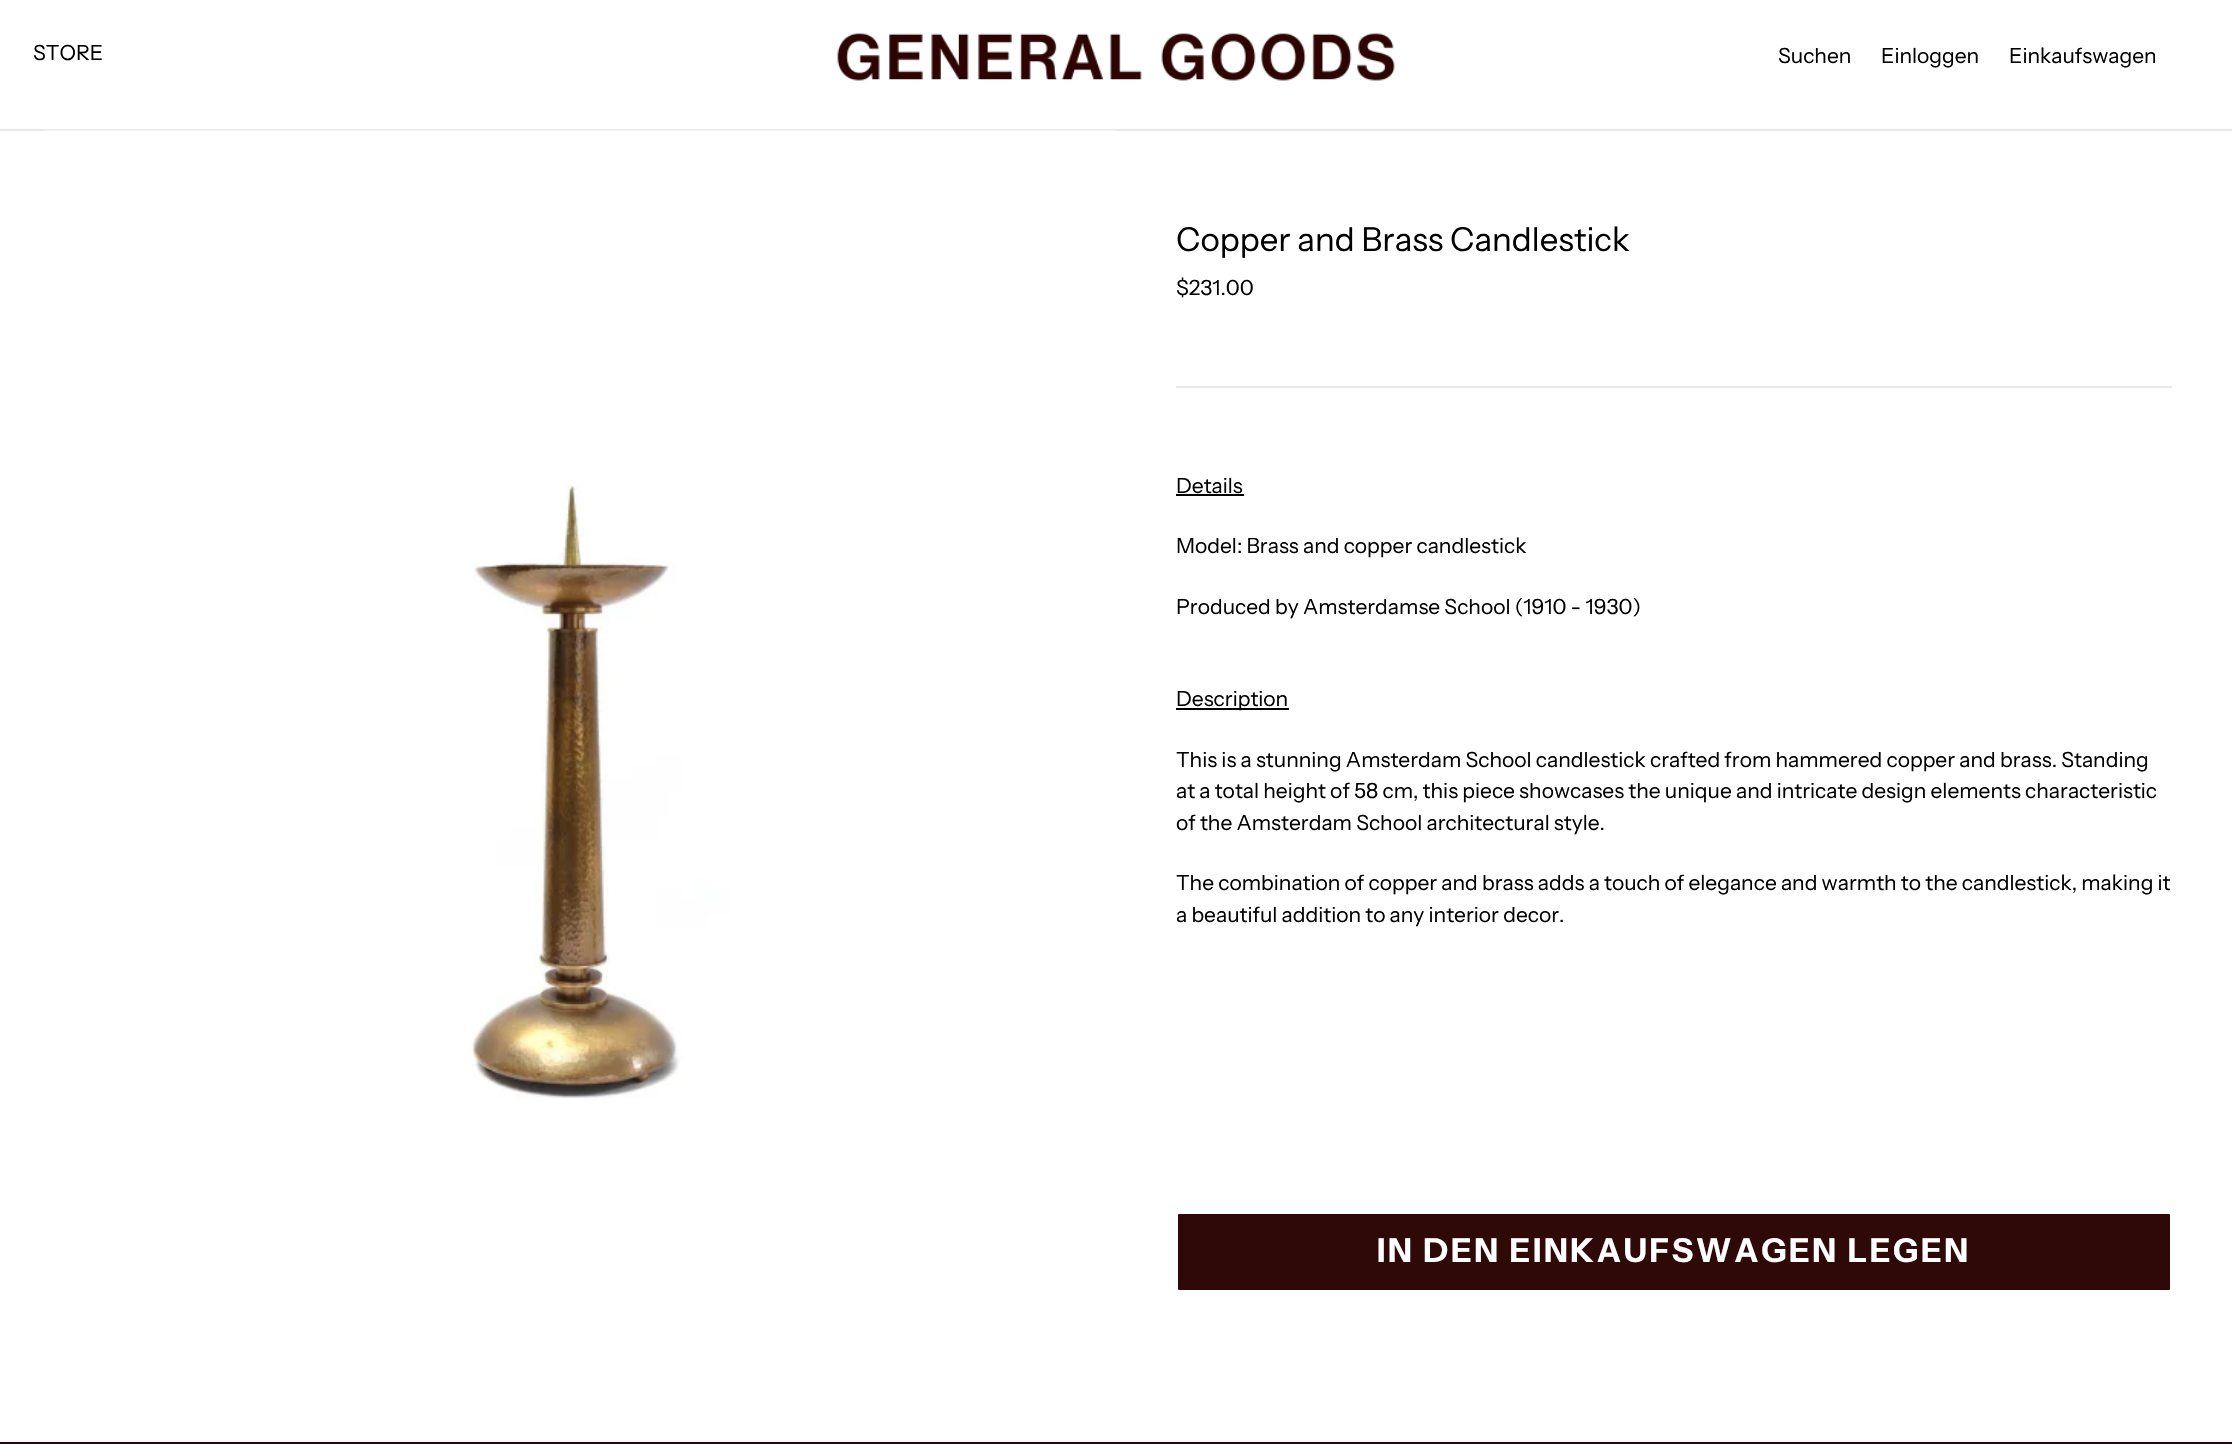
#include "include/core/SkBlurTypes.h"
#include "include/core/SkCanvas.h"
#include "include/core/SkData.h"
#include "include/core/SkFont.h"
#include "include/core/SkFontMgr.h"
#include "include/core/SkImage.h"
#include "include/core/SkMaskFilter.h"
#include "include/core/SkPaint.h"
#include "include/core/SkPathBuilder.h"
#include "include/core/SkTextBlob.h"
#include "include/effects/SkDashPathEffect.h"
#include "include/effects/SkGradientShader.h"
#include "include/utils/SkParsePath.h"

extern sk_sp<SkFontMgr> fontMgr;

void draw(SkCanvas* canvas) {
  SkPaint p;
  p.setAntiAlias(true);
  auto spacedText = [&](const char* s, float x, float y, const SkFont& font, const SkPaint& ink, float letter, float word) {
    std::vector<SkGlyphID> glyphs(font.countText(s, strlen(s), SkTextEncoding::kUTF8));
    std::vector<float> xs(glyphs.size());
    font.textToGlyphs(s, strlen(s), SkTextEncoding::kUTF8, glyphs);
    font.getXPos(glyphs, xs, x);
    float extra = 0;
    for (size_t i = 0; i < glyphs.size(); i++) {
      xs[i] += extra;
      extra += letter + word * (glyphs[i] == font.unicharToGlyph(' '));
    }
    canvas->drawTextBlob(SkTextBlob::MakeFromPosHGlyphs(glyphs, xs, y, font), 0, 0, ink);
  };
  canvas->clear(SK_ColorWHITE);
  canvas->drawImageRect(SkImages::DeferredFromEncodedData(SkData::MakeFromFileName("images/1.png")), SkRect::MakeLTRB(837, 33, 1395, 81), SkSamplingOptions());
  p.setColor(SkColorSetRGB(232, 233, 235));
  canvas->drawRect(SkRect::MakeLTRB(0, 129, 2232, 131), p);
  canvas->drawImageRect(SkImages::DeferredFromEncodedData(SkData::MakeFromFileName("images/2.png")), SkRect::MakeLTRB(45, 130, 1116, 1099), SkSamplingOptions());
  canvas->drawRect(SkRect::MakeLTRB(1176, 386, 2172, 388), p);
  p.setColor(SK_ColorBLACK);
  canvas->drawRect(SkRect::MakeLTRB(1176, 494, 1244, 496), p);
  canvas->drawRect(SkRect::MakeLTRB(1176, 708, 1289, 710), p);
  p.setColor(SkColorSetRGB(47, 8, 8));
  canvas->drawRoundRect(SkRect::MakeLTRB(1177, 1213, 2171, 1291), 2, 2, p);
  p.setStyle(SkPaint::kStroke_Style);
  p.setStrokeWidth(2);
  p.setColor(SK_ColorWHITE);
  canvas->drawRoundRect(SkRect::MakeLTRB(1177, 1213, 2171, 1291), 2, 2, p);
  p.setStyle(SkPaint::kFill_Style);
  p.setColor(SkColorSetRGB(51, 0, 0));
  canvas->drawRect(SkRect::MakeLTRB(0, 1442, 2232, 1444), p);
  SkFont font1(fontMgr->matchFamilyStyle("Instrument Sans", SkFontStyle::Normal()), 21);
  font1.setSubpixel(true);
  p.setColor(SK_ColorBLACK);
  canvas->drawString("STORE", 33, 60, font1, p);
  canvas->drawString("Suchen", 1778, 63, font1, p);
  canvas->drawString("Einloggen", 1881, 63, font1, p);
  canvas->drawString("Einkaufswagen", 2009, 63, font1, p);
  SkFont font2(fontMgr->matchFamilyStyle("Instrument Sans", SkFontStyle::Normal()), 33);
  font2.setSubpixel(true);
  canvas->drawString("Copper and Brass Candlestick", 1176, 251, font2, p);
  canvas->drawString("$231.00", 1176, 295, font1, p);
  canvas->drawString("Details", 1176, 493, font1, p);
  canvas->drawString("Model: Brass and copper candlestick", 1176, 553, font1, p);
  canvas->drawString("Produced by Amsterdamse School (1910 - 1930)", 1176, 614, font1, p);
  canvas->drawString("Description", 1176, 706, font1, p);
  canvas->drawString("This is a stunning Amsterdam School candlestick crafted from hammered copper and brass. Standing", 1176, 767, font1, p);
  canvas->drawString("at a total height of 58 cm, this piece showcases the unique and intricate design elements characteristic", 1176, 798, font1, p);
  canvas->drawString("of the Amsterdam School architectural style.", 1176, 830, font1, p);
  canvas->drawString("The combination of copper and brass adds a touch of elegance and warmth to the candlestick, making it", 1176, 890, font1, p);
  canvas->drawString("a beautiful addition to any interior decor.", 1176, 922, font1, p);
  SkFont font3(fontMgr->matchFamilyStyle("Instrument Sans", SkFontStyle::Bold()), 33);
  font3.setSubpixel(true);
  p.setColor(SK_ColorWHITE);
  spacedText("IN DEN EINKAUFSWAGEN LEGEN", 1377, 1262, font3, p, 2.65f, 0);
}
